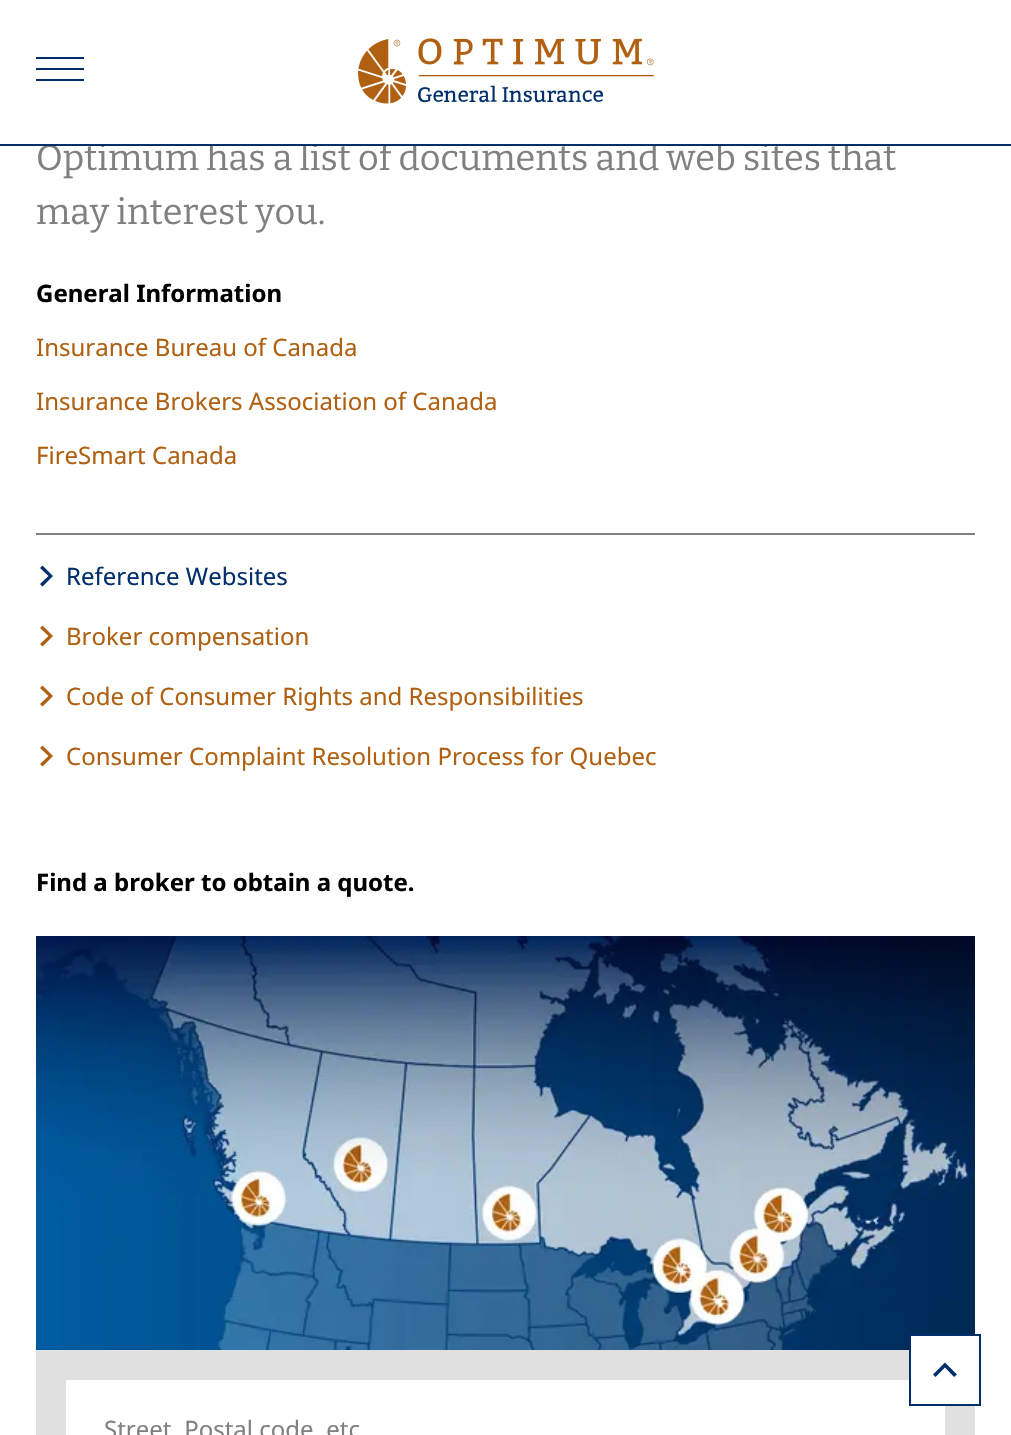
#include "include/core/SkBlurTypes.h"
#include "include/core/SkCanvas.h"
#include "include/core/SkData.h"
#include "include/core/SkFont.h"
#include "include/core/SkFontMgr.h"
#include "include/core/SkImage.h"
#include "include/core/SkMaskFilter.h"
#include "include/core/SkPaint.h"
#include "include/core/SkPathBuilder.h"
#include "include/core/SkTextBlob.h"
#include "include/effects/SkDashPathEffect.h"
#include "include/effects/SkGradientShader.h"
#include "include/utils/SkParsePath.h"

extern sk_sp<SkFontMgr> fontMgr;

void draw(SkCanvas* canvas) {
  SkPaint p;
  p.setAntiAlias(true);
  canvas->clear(SK_ColorWHITE);
  p.setColor(SkColorSetRGB(0, 47, 108));
  canvas->drawPath(SkPathBuilder().moveTo(36, 57).lineTo(84, 57).lineTo(84, 59).lineTo(36, 59).close().moveTo(36, 68).lineTo(84, 68).lineTo(84, 70).lineTo(36, 70).close().moveTo(36, 79).lineTo(84, 79).lineTo(84, 81).lineTo(36, 81).close().detach(), p);
  canvas->drawImageRect(SkImages::DeferredFromEncodedData(SkData::MakeFromFileName("images/1.png")), SkRect::MakeLTRB(358, 38, 654, 104), SkSamplingOptions());
  p.setColor(SkColorSetRGB(128, 128, 128));
  canvas->drawRect(SkRect::MakeLTRB(36, 533, 975, 535), p);
  p.setColor(SkColorSetRGB(0, 47, 108));
  canvas->drawPath(SkPathBuilder().moveTo(42.5f, 586.5f).lineTo(40, 584).lineTo(48.5f, 576).lineTo(40, 568).lineTo(42.5f, 565.5f).lineTo(53, 576).close().detach(), p);
  p.setColor(SkColorSetRGB(176, 96, 16));
  canvas->drawPath(SkPathBuilder().moveTo(42.5f, 646.5f).lineTo(40, 644).lineTo(48.5f, 636).lineTo(40, 628).lineTo(42.5f, 625.5f).lineTo(53, 636).close().detach(), p);
  canvas->drawPath(SkPathBuilder().moveTo(42.5f, 706.5f).lineTo(40, 704).lineTo(48.5f, 696).lineTo(40, 688).lineTo(42.5f, 685.5f).lineTo(53, 696).close().detach(), p);
  canvas->drawPath(SkPathBuilder().moveTo(42.5f, 766.5f).lineTo(40, 764).lineTo(48.5f, 756).lineTo(40, 748).lineTo(42.5f, 745.5f).lineTo(53, 756).close().detach(), p);
  canvas->drawImageRect(SkImages::DeferredFromEncodedData(SkData::MakeFromFileName("images/2.png")), SkRect::MakeLTRB(36, 936, 975, 1350), SkSamplingOptions());
  p.setColor(SkColorSetRGB(224, 224, 224));
  canvas->drawRect(SkRect::MakeLTRB(36, 1350, 975, 1435), p);
  p.setColor(SK_ColorWHITE);
  canvas->drawRect(SkRect::MakeLTRB(67, 1381, 944, 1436), p);
  p.setStyle(SkPaint::kStroke_Style);
  p.setStrokeWidth(2);
  canvas->drawRect(SkRect::MakeLTRB(67, 1381, 944, 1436), p);
  p.setStyle(SkPaint::kFill_Style);
  canvas->drawRect(SkRect::MakeLTRB(911, 1336, 975, 1404), p);
  p.setStyle(SkPaint::kStroke_Style);
  p.setColor(SkColorSetRGB(0, 47, 108));
  canvas->drawRect(SkRect::MakeLTRB(910, 1335, 980, 1405), p);
  p.setStyle(SkPaint::kFill_Style);
  canvas->drawPath(SkPathBuilder().moveTo(957, 1374.5f).lineTo(954, 1377).lineTo(945, 1367.5f).lineTo(935.5f, 1377).lineTo(933, 1374.5f).lineTo(945, 1362.5f).close().detach(), p);
  SkFont font1(fontMgr->matchFamilyStyle("Bitter", SkFontStyle(100, SkFontStyle::kNormal_Width, SkFontStyle::kUpright_Slant)), 36);
  font1.setSubpixel(true);
  p.setColor(SkColorSetRGB(128, 128, 128));
  canvas->drawString("Optimum has a list of documents and web sites that", 36, 170, font1, p);
  p.setColor(SK_ColorWHITE);
  canvas->drawRect(SkRect::MakeLTRB(101, 142, 848, 144), p);
  p.setColor(SkColorSetRGB(0, 47, 108));
  canvas->drawRect(SkRect::MakeLTRB(0, 144, 1011, 146), p);
  p.setColor(SkColorSetRGB(128, 128, 128));
  canvas->drawString("may interest you.", 36, 224, font1, p);
  SkFont font2(fontMgr->matchFamilyStyle("Noto Sans", SkFontStyle::Bold()), 24);
  font2.setSubpixel(true);
  p.setColor(SK_ColorBLACK);
  canvas->drawString("General Information", 36, 302, font2, p);
  SkFont font3(fontMgr->matchFamilyStyle("Noto Sans", SkFontStyle::Normal()), 24);
  font3.setSubpixel(true);
  p.setColor(SkColorSetRGB(176, 96, 16));
  canvas->drawString("Insurance Bureau of Canada", 36, 356, font3, p);
  canvas->drawString("Insurance Brokers Association of Canada", 36, 410, font3, p);
  canvas->drawString("FireSmart Canada", 36, 464, font3, p);
  p.setColor(SkColorSetRGB(0, 47, 108));
  canvas->drawString("Reference Websites", 66, 585, font3, p);
  p.setColor(SkColorSetRGB(176, 96, 16));
  canvas->drawString("Broker compensation", 66, 645, font3, p);
  canvas->drawString("Code of Consumer Rights and Responsibilities", 66, 705, font3, p);
  canvas->drawString("Consumer Complaint Resolution Process for Quebec", 66, 765, font3, p);
  p.setColor(SK_ColorBLACK);
  canvas->drawString("Find a broker to obtain a quote.", 36, 891, font2, p);
  p.setColor(SkColorSetRGB(128, 128, 128));
  canvas->drawString("Street, Postal code, etc", 104, 1438, font3, p);
}
